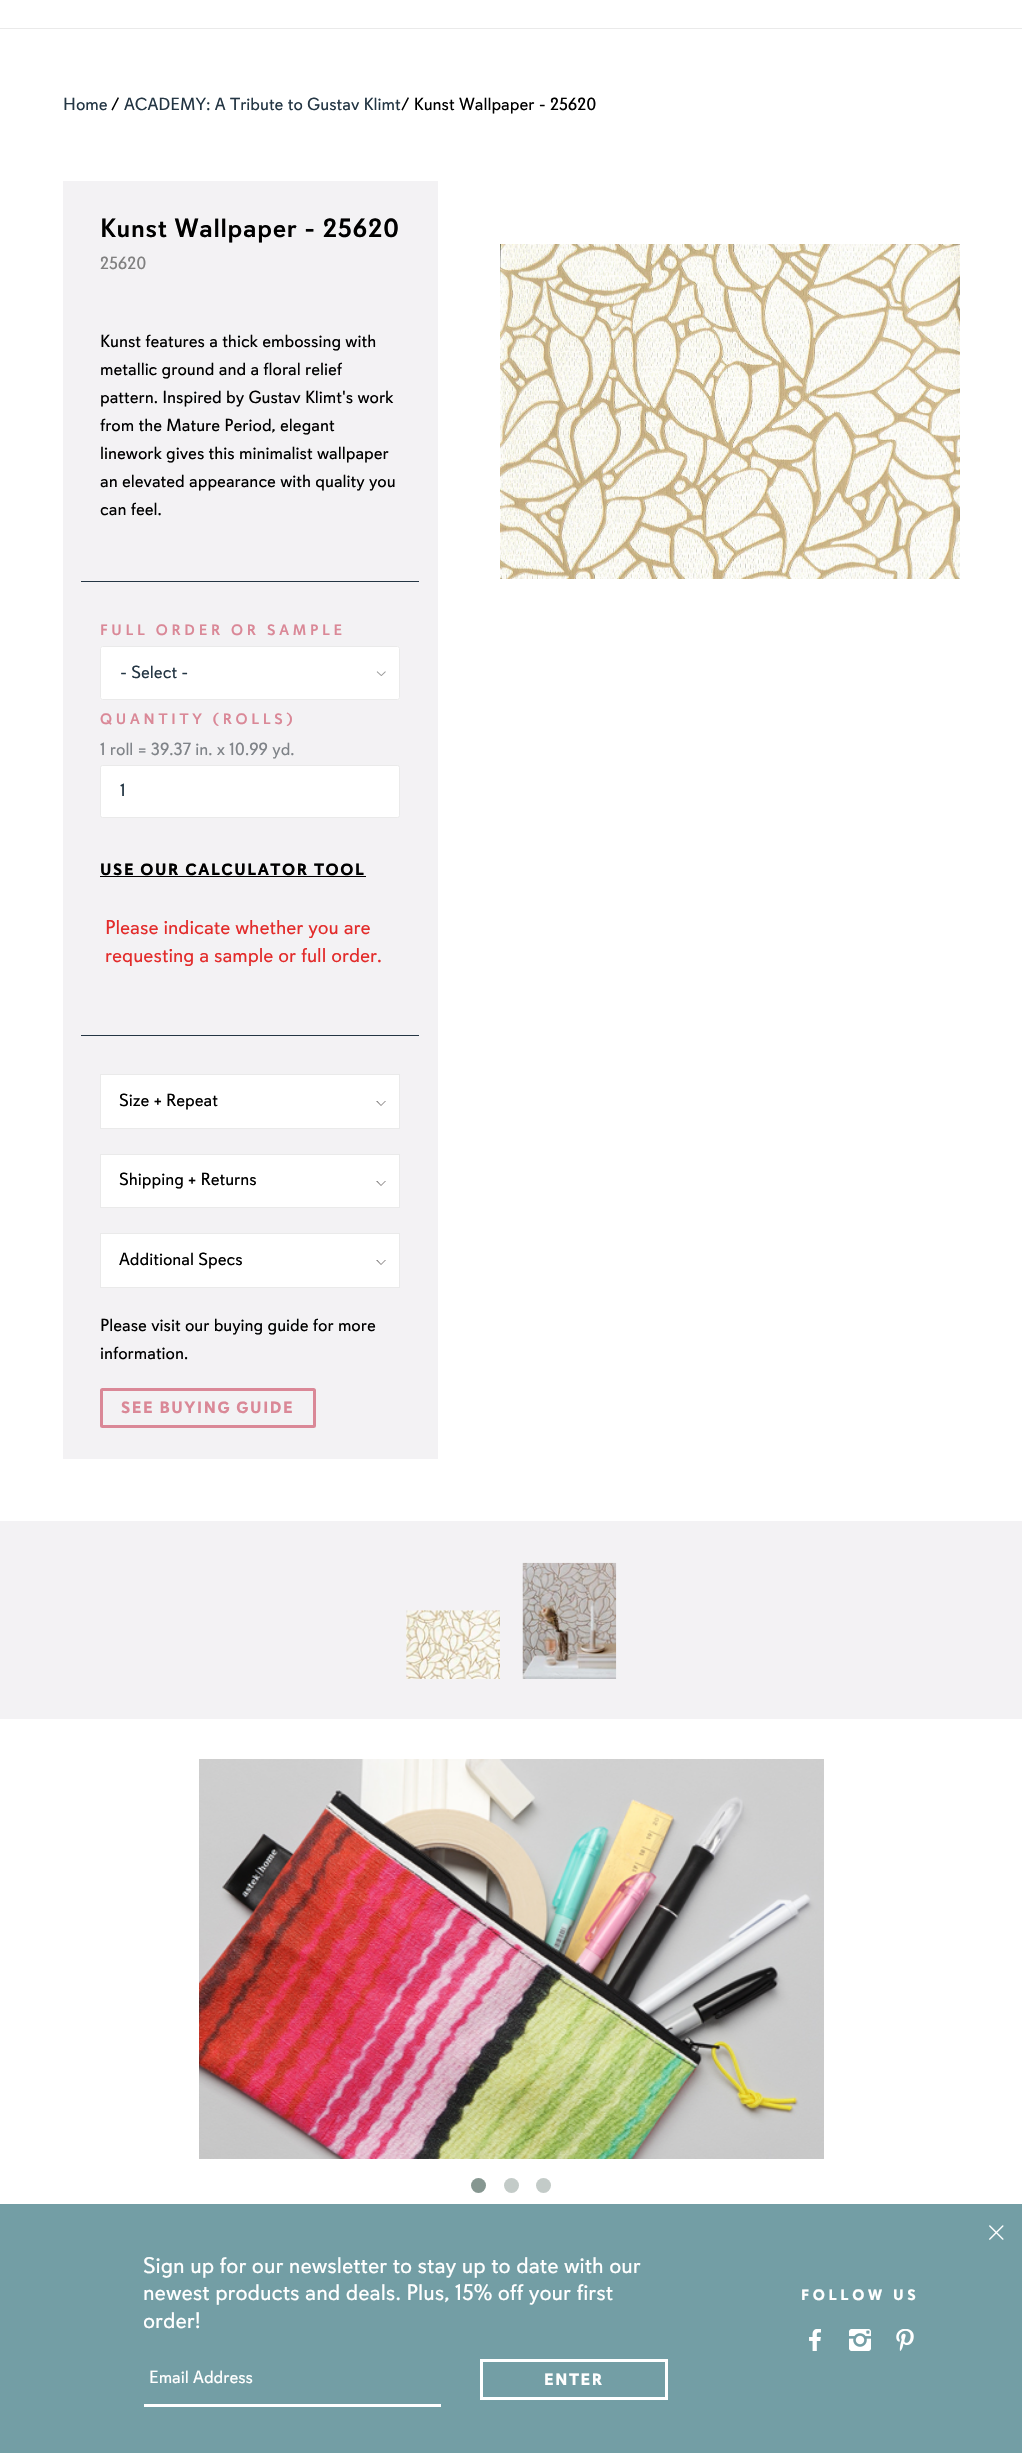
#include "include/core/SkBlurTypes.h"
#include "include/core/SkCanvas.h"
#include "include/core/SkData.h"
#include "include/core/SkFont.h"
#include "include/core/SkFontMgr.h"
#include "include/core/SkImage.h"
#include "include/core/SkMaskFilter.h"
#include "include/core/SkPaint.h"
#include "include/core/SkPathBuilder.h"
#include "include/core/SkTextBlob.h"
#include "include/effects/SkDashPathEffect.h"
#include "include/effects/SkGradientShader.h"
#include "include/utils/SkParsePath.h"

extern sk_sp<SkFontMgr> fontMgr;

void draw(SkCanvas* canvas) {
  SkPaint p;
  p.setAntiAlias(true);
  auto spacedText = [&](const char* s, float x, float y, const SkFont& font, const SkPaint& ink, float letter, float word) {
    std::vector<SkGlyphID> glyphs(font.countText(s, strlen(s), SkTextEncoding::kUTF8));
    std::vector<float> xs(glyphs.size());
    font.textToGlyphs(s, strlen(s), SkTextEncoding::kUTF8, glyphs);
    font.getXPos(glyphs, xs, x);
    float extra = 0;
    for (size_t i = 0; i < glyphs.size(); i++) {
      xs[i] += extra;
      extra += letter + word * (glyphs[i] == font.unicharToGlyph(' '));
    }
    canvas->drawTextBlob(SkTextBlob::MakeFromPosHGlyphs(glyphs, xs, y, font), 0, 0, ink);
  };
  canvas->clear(SK_ColorWHITE);
  p.setColor(SkColorSetRGB(234, 234, 234));
  canvas->drawRect(SkRect::MakeLTRB(0, 28, 1022, 29), p);
  p.setColor(SkColorSetRGB(243, 242, 244));
  canvas->drawRect(SkRect::MakeLTRB(0, 1521, 1022, 1719), p);
  canvas->drawRect(SkRect::MakeLTRB(63, 181, 438, 1459), p);
  p.setColor(SkColorSetRGB(36, 54, 68));
  canvas->drawRect(SkRect::MakeLTRB(81, 581, 419, 582), p);
  p.setColor(SK_ColorWHITE);
  canvas->drawRoundRect(SkRect::MakeLTRB(100, 646, 400, 700), 2.5f, 2.5f, p);
  canvas->drawImageRect(SkImages::DeferredFromEncodedData(SkData::MakeFromFileName("images/1.png")), SkRect::MakeLTRB(376, 671, 386, 676), SkSamplingOptions());
  p.setStyle(SkPaint::kStroke_Style);
  p.setStrokeWidth(1);
  p.setColor(SkColorSetRGB(234, 234, 234));
  canvas->drawRoundRect(SkRect::MakeLTRB(100.5f, 646.5f, 399.5f, 699.5f), 2, 2, p);
  p.setStyle(SkPaint::kFill_Style);
  p.setColor(SK_ColorWHITE);
  canvas->drawRoundRect(SkRect::MakeLTRB(100.5f, 765.5f, 399.5f, 817.5f), 2, 2, p);
  p.setStyle(SkPaint::kStroke_Style);
  p.setColor(SkColorSetRGB(234, 234, 234));
  canvas->drawRoundRect(SkRect::MakeLTRB(100.5f, 765.5f, 399.5f, 817.5f), 2, 2, p);
  p.setStyle(SkPaint::kFill_Style);
  p.setColor(SK_ColorBLACK);
  canvas->drawRect(SkRect::MakeLTRB(100, 876, 366, 877), p);
  p.setColor(SkColorSetRGB(36, 54, 68));
  canvas->drawRect(SkRect::MakeLTRB(81, 1035, 419, 1036), p);
  p.setColor(SK_ColorWHITE);
  canvas->drawRect(SkRect::MakeLTRB(100.5f, 1074.5f, 399.5f, 1128.5f), p);
  p.setStyle(SkPaint::kStroke_Style);
  p.setColor(SkColorSetRGB(234, 234, 234));
  canvas->drawRect(SkRect::MakeLTRB(100.5f, 1074.5f, 399.5f, 1128.5f), p);
  p.setStyle(SkPaint::kFill_Style);
  p.setColor(SkColorSetRGB(125, 121, 121));
  canvas->drawPath(SkPathBuilder().moveTo(376, 1101).lineTo(386, 1101).lineTo(381, 1106).close().detach(), p);
  p.setColor(SK_ColorWHITE);
  canvas->drawPath(SkPathBuilder().moveTo(377.5f, 1101).lineTo(385, 1101).lineTo(381, 1105).close().detach(), p);
  canvas->drawRect(SkRect::MakeLTRB(100.5f, 1154.5f, 399.5f, 1207.5f), p);
  p.setStyle(SkPaint::kStroke_Style);
  p.setColor(SkColorSetRGB(234, 234, 234));
  canvas->drawRect(SkRect::MakeLTRB(100.5f, 1154.5f, 399.5f, 1207.5f), p);
  p.setStyle(SkPaint::kFill_Style);
  p.setColor(SkColorSetRGB(125, 121, 121));
  canvas->drawPath(SkPathBuilder().moveTo(376, 1181).lineTo(386, 1181).lineTo(381, 1186).close().detach(), p);
  p.setColor(SK_ColorWHITE);
  canvas->drawPath(SkPathBuilder().moveTo(377.5f, 1181).lineTo(385, 1181).lineTo(381, 1185).close().detach(), p);
  canvas->drawRect(SkRect::MakeLTRB(100.5f, 1233.5f, 399.5f, 1287.5f), p);
  p.setStyle(SkPaint::kStroke_Style);
  p.setColor(SkColorSetRGB(234, 234, 234));
  canvas->drawRect(SkRect::MakeLTRB(100.5f, 1233.5f, 399.5f, 1287.5f), p);
  p.setStyle(SkPaint::kFill_Style);
  p.setColor(SkColorSetRGB(125, 121, 121));
  canvas->drawPath(SkPathBuilder().moveTo(376, 1260).lineTo(386, 1260).lineTo(381, 1265).close().detach(), p);
  p.setColor(SK_ColorWHITE);
  canvas->drawPath(SkPathBuilder().moveTo(377.5f, 1260).lineTo(385, 1260).lineTo(381, 1264).close().detach(), p);
  p.setStyle(SkPaint::kStroke_Style);
  p.setStrokeWidth(3);
  p.setColor(SkColorSetRGB(218, 136, 151));
  canvas->drawRoundRect(SkRect::MakeLTRB(101.5f, 1389.5f, 314.5f, 1426.5f), 1, 1, p);
  canvas->drawImageRect(SkImages::DeferredFromEncodedData(SkData::MakeFromFileName("images/2.png")), SkRect::MakeLTRB(500, 244, 960, 579), SkSamplingOptions());
  canvas->drawImageRect(SkImages::DeferredFromEncodedData(SkData::MakeFromFileName("images/3.png")), SkRect::MakeLTRB(406, 1610, 500, 1679), SkSamplingOptions());
  canvas->drawImageRect(SkImages::DeferredFromEncodedData(SkData::MakeFromFileName("images/4.png")), SkRect::MakeLTRB(522, 1562, 617, 1679), SkSamplingOptions());
  canvas->drawImageRect(SkImages::DeferredFromEncodedData(SkData::MakeFromFileName("images/5.png")), SkRect::MakeLTRB(199, 1759, 824, 2159), SkSamplingOptions());
  p.setStyle(SkPaint::kFill_Style);
  p.setColor(SkColorSetRGB(134, 151, 145));
  canvas->drawCircle(478.5f, 2185.5f, 7.5f, p);
  p.setColor(SkColorSetRGB(195, 203, 200));
  canvas->drawCircle(511.5f, 2185.5f, 7.5f, p);
  canvas->drawCircle(543.5f, 2185.5f, 7.5f, p);
  p.setColor(SkColorSetRGB(115, 158, 165));
  canvas->drawRect(SkRect::MakeLTRB(0, 2204, 1022, 2453), p);
  canvas->drawImageRect(SkImages::DeferredFromEncodedData(SkData::MakeFromFileName("images/6.png")), SkRect::MakeLTRB(989, 2225, 1004, 2240), SkSamplingOptions());
  p.setColor(SK_ColorWHITE);
  canvas->drawRect(SkRect::MakeLTRB(144, 2404, 441, 2407), p);
  p.setStyle(SkPaint::kStroke_Style);
  canvas->drawRect(SkRect::MakeLTRB(481.5f, 2360.5f, 666.5f, 2398.5f), p);
  canvas->drawImageRect(SkImages::DeferredFromEncodedData(SkData::MakeFromFileName("images/7.png")), SkRect::MakeLTRB(809, 2329, 821, 2351), SkSamplingOptions());
  canvas->drawImageRect(SkImages::DeferredFromEncodedData(SkData::MakeFromFileName("images/8.png")), SkRect::MakeLTRB(849, 2329, 871, 2351), SkSamplingOptions());
  canvas->drawImageRect(SkImages::DeferredFromEncodedData(SkData::MakeFromFileName("images/9.png")), SkRect::MakeLTRB(896, 2329, 914, 2351), SkSamplingOptions());
  SkFont font1(fontMgr->matchFamilyStyle("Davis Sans", SkFontStyle::Normal()), 17.5f);
  font1.setSubpixel(true);
  p.setStyle(SkPaint::kFill_Style);
  p.setColor(SkColorSetRGB(36, 54, 68));
  canvas->drawString("Home", 63, 110, font1, p);
  p.setColor(SK_ColorBLACK);
  canvas->drawString("/", 111, 110, font1, p);
  p.setColor(SkColorSetRGB(36, 54, 68));
  canvas->drawString("ACADEMY: A Tribute to Gustav Klimt", 124, 110, font1, p);
  p.setColor(SK_ColorBLACK);
  canvas->drawString("/ Kunst Wallpaper - 25620", 401, 110, font1, p);
  SkFont font2(fontMgr->matchFamilyStyle("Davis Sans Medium", SkFontStyle(500, SkFontStyle::kNormal_Width, SkFontStyle::kUpright_Slant)), 26.25f);
  font2.setSubpixel(true);
  spacedText("Kunst Wallpaper - 25620", 100, 237, font2, p, 0.7f, 0);
  p.setColor(SkColorSetRGB(128, 128, 128));
  canvas->drawString("25620", 100, 269, font1, p);
  p.setColor(SK_ColorBLACK);
  canvas->drawString("Kunst features a thick embossing with", 100, 347, font1, p);
  canvas->drawString("metallic ground and a floral relief", 100, 375, font1, p);
  canvas->drawString("pattern. Inspired by Gustav Klimt's work", 100, 403, font1, p);
  canvas->drawString("from the Mature Period, elegant", 100, 431, font1, p);
  canvas->drawString("linework gives this minimalist wallpaper", 100, 459, font1, p);
  canvas->drawString("an elevated appearance with quality you", 100, 487, font1, p);
  canvas->drawString("can feel.", 100, 515, font1, p);
  SkFont font3(fontMgr->matchFamilyStyle("Davis Sans Medium", SkFontStyle(500, SkFontStyle::kNormal_Width, SkFontStyle::kUpright_Slant)), 15);
  font3.setSubpixel(true);
  p.setColor(SkColorSetRGB(218, 136, 151));
  spacedText("FULL ORDER OR SAMPLE", 100, 635, font3, p, 3.75f, 0);
  p.setColor(SkColorSetRGB(36, 54, 68));
  canvas->drawString("- Select -", 120, 678, font1, p);
  p.setColor(SkColorSetRGB(218, 136, 151));
  spacedText("QUANTITY (ROLLS)", 100, 724, font3, p, 3.75f, 0);
  p.setColor(SkColorSetRGB(128, 132, 137));
  canvas->drawString("1 roll = 39.37 in. x 10.99 yd.", 100, 755, font1, p);
  p.setColor(SkColorSetRGB(36, 54, 68));
  canvas->drawString("1", 120, 796, font1, p);
  SkFont font4(fontMgr->matchFamilyStyle("Davis Sans", SkFontStyle::Bold()), 16.25f);
  font4.setSubpixel(true);
  p.setColor(SK_ColorBLACK);
  spacedText("USE OUR CALCULATOR TOOL", 100, 875, font4, p, 1.6f, 0);
  SkFont font5(fontMgr->matchFamilyStyle("Davis Sans", SkFontStyle::Normal()), 20);
  font5.setSubpixel(true);
  p.setColor(SkColorSetRGB(227, 44, 43));
  canvas->drawString("Please indicate whether you are", 105, 934, font5, p);
  canvas->drawString("requesting a sample or full order.", 105, 962, font5, p);
  p.setColor(SK_ColorBLACK);
  canvas->drawString("Size + Repeat", 119, 1106, font1, p);
  canvas->drawString("Shipping + Returns", 119, 1185, font1, p);
  canvas->drawString("Additional Specs", 119, 1265, font1, p);
  canvas->drawString("Please visit our buying guide for more", 100, 1331, font1, p);
  canvas->drawString("information.", 100, 1359, font1, p);
  p.setColor(SkColorSetRGB(218, 136, 151));
  spacedText("SEE BUYING GUIDE", 121, 1413, font4, p, 1.6f, 0);
  SkFont font6(fontMgr->matchFamilyStyle("Davis Sans", SkFontStyle::Normal()), 22.5f);
  font6.setSubpixel(true);
  p.setColor(SK_ColorWHITE);
  canvas->drawString("Sign up for our newsletter to stay up to date with our", 143, 2273, font6, p);
  canvas->drawString("newest products and deals. Plus, 15% off your first", 143, 2300, font6, p);
  canvas->drawString("order!", 143, 2328, font6, p);
  canvas->drawString("Email Address", 149, 2383, font1, p);
  spacedText("ENTER", 544, 2385, font4, p, 1.6f, 0);
  SkFont font7(fontMgr->matchFamilyStyle("Davis Sans", SkFontStyle::Bold()), 15);
  font7.setSubpixel(true);
  spacedText("FOLLOW US", 801, 2300, font7, p, 3.75f, 0);
}
